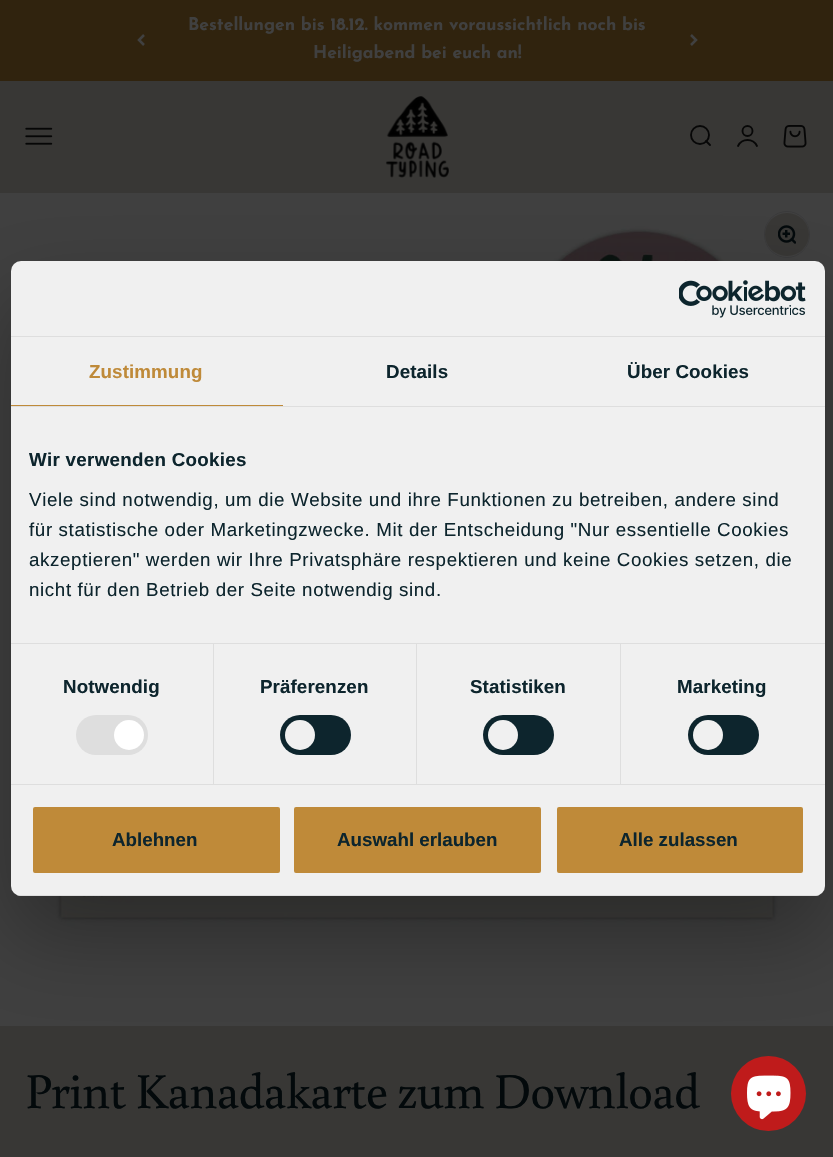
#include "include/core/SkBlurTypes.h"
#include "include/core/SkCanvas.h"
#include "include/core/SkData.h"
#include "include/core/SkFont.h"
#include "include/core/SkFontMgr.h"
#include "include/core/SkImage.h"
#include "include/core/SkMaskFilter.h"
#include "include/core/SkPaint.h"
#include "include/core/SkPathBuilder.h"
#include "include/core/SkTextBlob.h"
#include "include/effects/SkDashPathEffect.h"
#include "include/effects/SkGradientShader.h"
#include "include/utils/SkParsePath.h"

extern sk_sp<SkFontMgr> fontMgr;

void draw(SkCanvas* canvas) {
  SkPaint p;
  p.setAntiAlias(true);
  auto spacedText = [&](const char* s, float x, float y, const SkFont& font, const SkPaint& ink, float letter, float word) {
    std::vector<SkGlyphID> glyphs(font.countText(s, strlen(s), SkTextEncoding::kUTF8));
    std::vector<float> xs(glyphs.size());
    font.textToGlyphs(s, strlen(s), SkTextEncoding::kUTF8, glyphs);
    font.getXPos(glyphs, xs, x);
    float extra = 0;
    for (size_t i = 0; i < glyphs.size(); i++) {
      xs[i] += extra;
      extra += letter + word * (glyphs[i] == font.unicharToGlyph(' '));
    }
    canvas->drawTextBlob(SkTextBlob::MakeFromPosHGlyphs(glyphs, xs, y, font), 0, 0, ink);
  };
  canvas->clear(SkColorSetRGB(56, 55, 53));
  p.setColor(SkColorSetRGB(48, 35, 14));
  canvas->drawRect(SkRect::MakeLTRB(0, 0, 833, 81), p);
  p.setStyle(SkPaint::kStroke_Style);
  p.setStrokeWidth(2.5f);
  p.setColor(SkColorSetRGB(64, 64, 64));
  canvas->drawPath(SkPathBuilder().moveTo(144, 35).lineTo(139, 40).lineTo(144, 45).detach(), p);
  canvas->drawPath(SkPathBuilder().moveTo(691, 45).lineTo(696, 40).lineTo(691, 35).detach(), p);
  canvas->drawImageRect(SkImages::DeferredFromEncodedData(SkData::MakeFromFileName("images/1.png")), SkRect::MakeLTRB(25, 127, 53, 145), SkSamplingOptions());
  canvas->drawImageRect(SkImages::DeferredFromEncodedData(SkData::MakeFromFileName("images/2.png")), SkRect::MakeLTRB(385, 96, 449, 178), SkSamplingOptions());
  p.setStrokeWidth(1.9f);
  p.setColor(SkColorSetRGB(7, 7, 7));
  canvas->drawCircle(700, 135, 9, p);
  p.setStrokeCap(SkPaint::kRound_Cap);
  p.setStrokeJoin(SkPaint::kRound_Join);
  canvas->drawPath(SkPathBuilder().moveTo(706, 141).lineTo(710, 145).detach(), p);
  p.setStrokeCap(SkPaint::kButt_Cap);
  p.setStrokeJoin(SkPaint::kMiter_Join);
  canvas->drawCircle(747.5f, 131, 5, p);
  p.setStrokeCap(SkPaint::kRound_Cap);
  canvas->drawPath(SkPathBuilder().moveTo(738, 146).cubicTo(742, 138, 753, 138, 757, 146).detach(), p);
  canvas->drawImageRect(SkImages::DeferredFromEncodedData(SkData::MakeFromFileName("images/3.png")), SkRect::MakeLTRB(783, 125, 807, 148), SkSamplingOptions());
  canvas->drawImageRect(SkImages::DeferredFromEncodedData(SkData::MakeFromFileName("images/5.png")), SkRect::MakeLTRB(0, 193, 833, 1026), SkSamplingOptions());
  p.setStrokeWidth(1);
  p.setStrokeCap(SkPaint::kButt_Cap);
  p.setColor(SkColorSetRGB(57, 57, 58));
  canvas->drawRoundRect(SkRect::MakeLTRB(764.5f, 211.5f, 809.5f, 257.5f), 22.5f, 22.5f, p);
  p.setStyle(SkPaint::kFill_Style);
  p.setColor(SkColorSetRGB(56, 55, 53));
  canvas->drawRoundRect(SkRect::MakeLTRB(765, 213, 809, 256), 21.5f, 21.5f, p);
  canvas->drawImageRect(SkImages::DeferredFromEncodedData(SkData::MakeFromFileName("images/6.png")), SkRect::MakeLTRB(778, 225, 796, 244), SkSamplingOptions());
  p.setColor(SkColorSetARGB(77, 0, 0, 0));
  p.setMaskFilter(SkMaskFilter::MakeBlur(kNormal_SkBlurStyle, 42.5f));
  canvas->drawRoundRect(SkRect::MakeLTRB(11, 301, 825, 936), 10, 10, p);
  p.setMaskFilter(nullptr);
  p.setColor(SkColorSetRGB(240, 240, 240));
  canvas->drawRoundRect(SkRect::MakeLTRB(11, 261, 825, 896), 10, 10, p);
  p.setColor(SkColorSetRGB(222, 222, 222));
  canvas->drawRect(SkRect::MakeLTRB(11, 336, 825, 337), p);
  canvas->drawImageRect(SkImages::DeferredFromEncodedData(SkData::MakeFromFileName("images/4.png")), SkRect::MakeLTRB(679, 280, 806, 318), SkSamplingOptions());
  canvas->drawRect(SkRect::MakeLTRB(11, 406, 825, 407), p);
  p.setColor(SkColorSetRGB(191, 138, 57));
  canvas->drawRect(SkRect::MakeLTRB(11, 405, 283, 406), p);
  p.setColor(SkColorSetRGB(222, 222, 222));
  canvas->drawRect(SkRect::MakeLTRB(11, 643, 825, 644), p);
  canvas->drawRect(SkRect::MakeLTRB(11, 784, 825, 785), p);
  canvas->drawRect(SkRect::MakeLTRB(213, 644, 214, 784), p);
  canvas->drawRoundRect(SkRect::MakeLTRB(76, 715, 148, 755), 20, 20, p);
  p.setColor(SK_ColorWHITE);
  canvas->drawCircle(129, 735, 15, p);
  p.setColor(SkColorSetRGB(222, 222, 222));
  canvas->drawRect(SkRect::MakeLTRB(416, 644, 417, 784), p);
  p.setColor(SkColorSetRGB(13, 37, 45));
  canvas->drawRoundRect(SkRect::MakeLTRB(280, 715, 351, 755), 20, 20, p);
  p.setColor(SkColorSetRGB(240, 240, 240));
  canvas->drawCircle(300, 735, 15, p);
  p.setColor(SkColorSetRGB(222, 222, 222));
  canvas->drawRect(SkRect::MakeLTRB(620, 644, 621, 784), p);
  p.setColor(SkColorSetRGB(13, 37, 45));
  canvas->drawRoundRect(SkRect::MakeLTRB(483, 715, 554, 755), 20, 20, p);
  p.setColor(SkColorSetRGB(240, 240, 240));
  canvas->drawCircle(503, 735, 15, p);
  p.setColor(SkColorSetRGB(13, 37, 45));
  canvas->drawRoundRect(SkRect::MakeLTRB(688, 715, 759, 755), 20, 20, p);
  p.setColor(SkColorSetRGB(240, 240, 240));
  canvas->drawCircle(708, 735, 15, p);
  canvas->save();
  canvas->clipPath(SkPathBuilder().moveTo(21, 261).lineTo(815, 261).cubicTo(820.5f, 261, 825, 265.5f, 825, 271).lineTo(825, 886).cubicTo(825, 891.5f, 820.5f, 896, 815, 896).lineTo(21, 896).cubicTo(15.5f, 896, 11, 891.5f, 11, 886).lineTo(11, 271).cubicTo(11, 265.5f, 15.5f, 261, 21, 261).close().detach(), true);
  p.setColor(SkColorSetRGB(222, 222, 222));
  canvas->drawRect(SkRect::MakeLTRB(11, 895, 825, 896), p);
  canvas->restore();
  p.setColor(SkColorSetRGB(191, 138, 57));
  canvas->drawRoundRect(SkRect::MakeLTRB(31.5f, 805.5f, 281.5f, 874.5f), 3.5f, 3.5f, p);
  p.setStyle(SkPaint::kStroke_Style);
  p.setStrokeWidth(3);
  p.setColor(SkColorSetRGB(240, 240, 240));
  canvas->drawRoundRect(SkRect::MakeLTRB(31.5f, 805.5f, 281.5f, 874.5f), 3.5f, 3.5f, p);
  p.setStyle(SkPaint::kFill_Style);
  p.setColor(SkColorSetRGB(191, 138, 57));
  canvas->drawRoundRect(SkRect::MakeLTRB(292.5f, 805.5f, 542.5f, 874.5f), 3.5f, 3.5f, p);
  p.setStyle(SkPaint::kStroke_Style);
  p.setColor(SkColorSetRGB(240, 240, 240));
  canvas->drawRoundRect(SkRect::MakeLTRB(292.5f, 805.5f, 542.5f, 874.5f), 3.5f, 3.5f, p);
  p.setStyle(SkPaint::kFill_Style);
  p.setColor(SkColorSetRGB(191, 138, 57));
  canvas->drawRoundRect(SkRect::MakeLTRB(555.5f, 805.5f, 804.5f, 874.5f), 3.5f, 3.5f, p);
  p.setStyle(SkPaint::kStroke_Style);
  p.setColor(SkColorSetRGB(240, 240, 240));
  canvas->drawRoundRect(SkRect::MakeLTRB(555.5f, 805.5f, 804.5f, 874.5f), 3.5f, 3.5f, p);
  p.setStyle(SkPaint::kFill_Style);
  p.setColor(SkColorSetRGB(191, 27, 27));
  canvas->drawCircle(768.5f, 1093.5f, 37.5f, p);
  canvas->drawImageRect(SkImages::DeferredFromEncodedData(SkData::MakeFromFileName("images/7.png")), SkRect::MakeLTRB(747, 1075, 791, 1120), SkSamplingOptions());
  SkFont font1(fontMgr->matchFamilyStyle("Josefin Sans", SkFontStyle::Bold()), 17.5f);
  font1.setSubpixel(true);
  p.setColor(SkColorSetRGB(64, 64, 64));
  canvas->drawString("Bestellungen bis 18.12. kommen voraussichtlich noch bis", 188, 30, font1, p);
  canvas->drawString("Heiligabend bei euch an!", 313, 58, font1, p);
  SkFont font2(fontMgr->matchFamilyStyle("Liberation Sans", SkFontStyle::Bold()), 18.75f);
  font2.setSubpixel(true);
  p.setColor(SkColorSetRGB(191, 138, 57));
  spacedText("Zustimmung", 89, 378, font2, p, 0.1f, 0);
  p.setColor(SkColorSetRGB(13, 37, 45));
  spacedText("Details", 386, 378, font2, p, 0.1f, 0);
  spacedText("Über Cookies", 627, 378, font2, p, 0.1f, 0);
  spacedText("Wir verwenden Cookies", 29, 466, font2, p, 0.3f, 0);
  SkFont font3(fontMgr->matchFamilyStyle("Liberation Sans", SkFontStyle::Normal()), 18.75f);
  font3.setSubpixel(true);
  spacedText("Viele sind notwendig, um die Website und ihre Funktionen zu betreiben, andere sind", 29, 506, font3, p, 0.62f, 0);
  spacedText("für statistische oder Marketingzwecke. Mit der Entscheidung \"Nur essentielle Cookies", 29, 536, font3, p, 0.62f, 0);
  spacedText("akzeptieren\" werden wir Ihre Privatsphäre respektieren und keine Cookies setzen, die", 29, 566, font3, p, 0.62f, 0);
  spacedText("nicht für den Betrieb der Seite notwendig sind.", 29, 596, font3, p, 0.62f, 0);
  spacedText("Notwendig", 63, 693, font2, p, 0.1f, 0);
  spacedText("Präferenzen", 260, 693, font2, p, 0.1f, 0);
  spacedText("Statistiken", 470, 693, font2, p, 0.1f, 0);
  spacedText("Marketing", 677, 693, font2, p, 0.1f, 0);
  canvas->drawString("Ablehnen", 112, 846, font2, p);
  canvas->drawString("Auswahl erlauben", 337, 846, font2, p);
  canvas->drawString("Alle zulassen", 619, 846, font2, p);
  SkFont font4(fontMgr->matchFamilyStyle("Buenard", SkFontStyle::Normal()), 50);
  font4.setSubpixel(true);
  p.setColor(SkColorSetRGB(3, 9, 11));
  spacedText("Print Kanadakarte zum Download", 25, 1108, font4, p, -1, 0);
}
